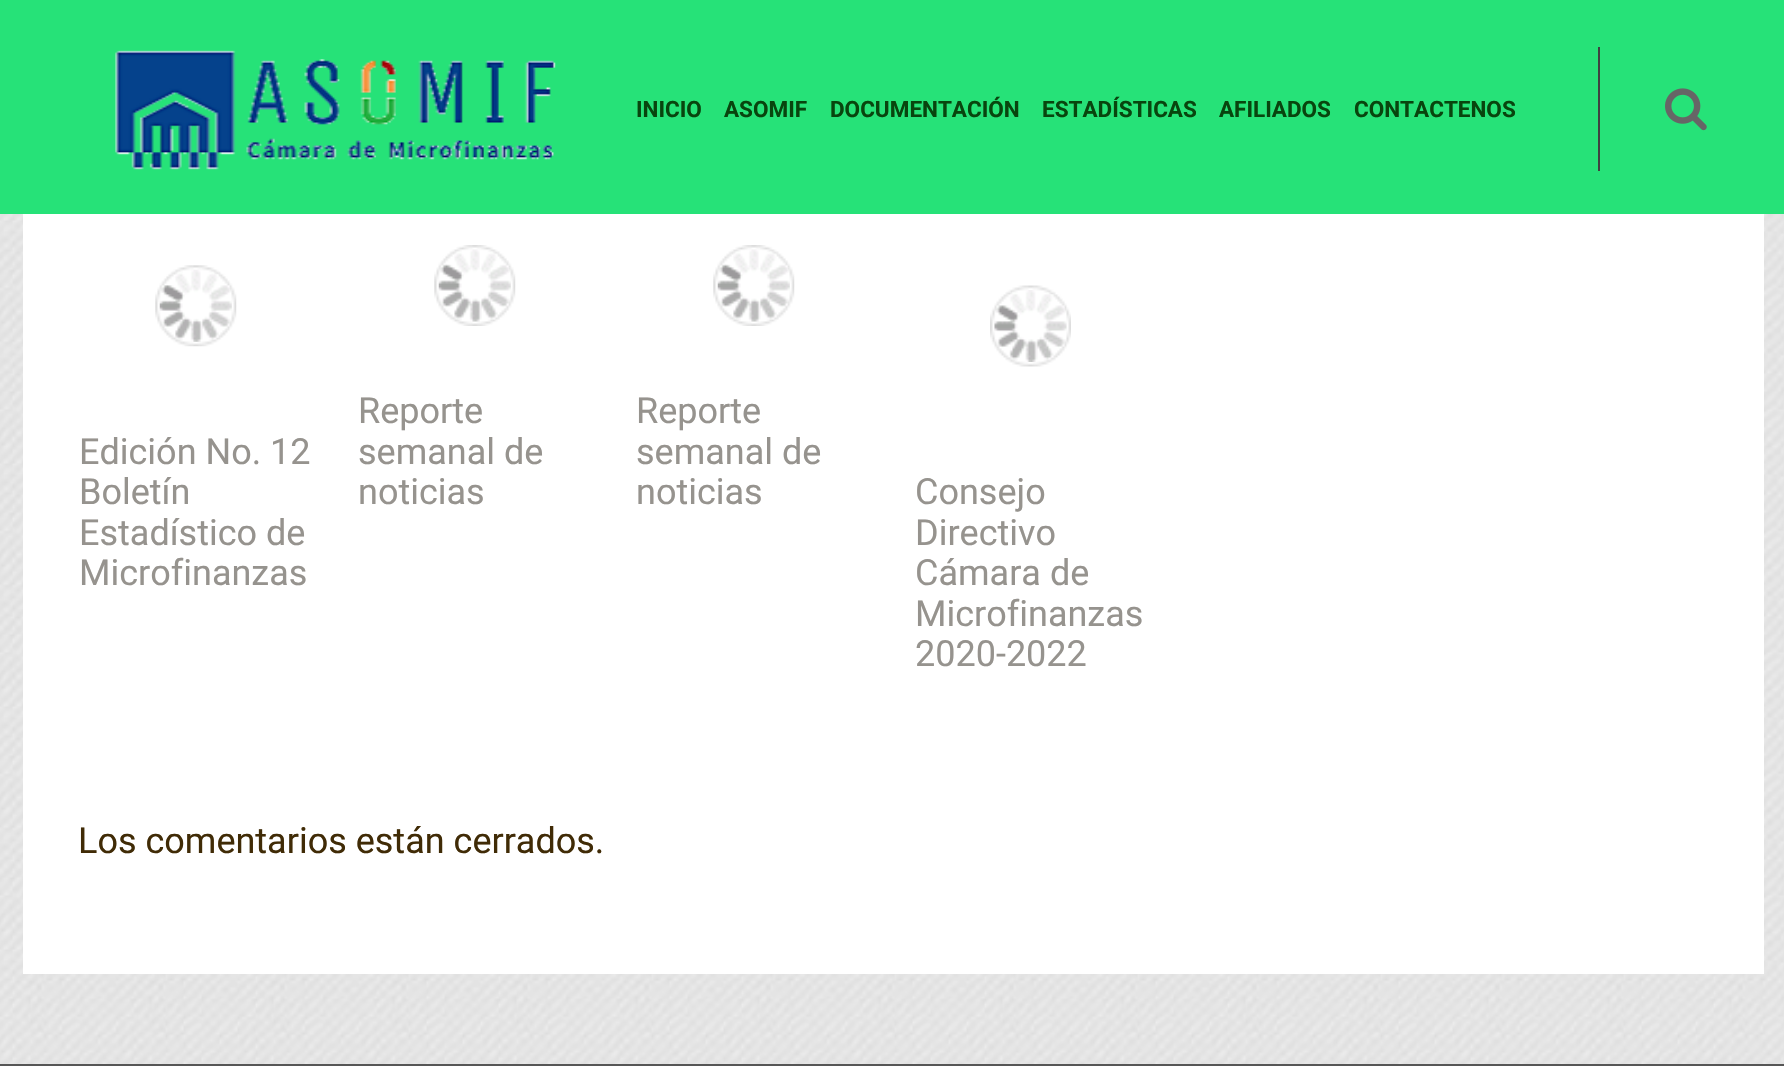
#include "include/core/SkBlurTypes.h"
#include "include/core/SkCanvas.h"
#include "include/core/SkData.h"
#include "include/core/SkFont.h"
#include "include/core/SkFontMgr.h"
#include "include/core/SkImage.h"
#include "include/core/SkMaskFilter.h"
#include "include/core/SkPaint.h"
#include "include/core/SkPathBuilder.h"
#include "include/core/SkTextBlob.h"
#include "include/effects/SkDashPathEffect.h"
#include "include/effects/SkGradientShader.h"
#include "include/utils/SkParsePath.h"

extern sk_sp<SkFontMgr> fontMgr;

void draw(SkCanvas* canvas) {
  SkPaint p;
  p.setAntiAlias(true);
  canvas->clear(SkColorSetRGB(86, 86, 86));
  p.setColor(SkColorSetRGB(38, 226, 120));
  canvas->drawRect(SkRect::MakeLTRB(0, 0, 1784, 214), p);
  canvas->drawImageRect(SkImages::DeferredFromEncodedData(SkData::MakeFromFileName("images/1.png")), SkRect::MakeLTRB(115, 50, 556, 170), SkSamplingOptions());
  p.setColor(SkColorSetRGB(65, 65, 65));
  canvas->drawRect(SkRect::MakeLTRB(1598, 47, 1600, 171), p);
  canvas->drawImageRect(SkImages::DeferredFromEncodedData(SkData::MakeFromFileName("images/2.png")), SkRect::MakeLTRB(1665, 88, 1707, 131), SkSamplingOptions());
  canvas->drawImageRect(SkImages::DeferredFromEncodedData(SkData::MakeFromFileName("images/3.png")), SkRect::MakeLTRB(0, 214, 1784, 1064), SkSamplingOptions());
  p.setColor(SK_ColorWHITE);
  canvas->drawRect(SkRect::MakeLTRB(23, 214, 1764, 974), p);
  canvas->drawImageRect(SkImages::DeferredFromEncodedData(SkData::MakeFromFileName("images/4.png")), SkRect::MakeLTRB(155, 265, 237, 347), SkSamplingOptions());
  canvas->drawImageRect(SkImages::DeferredFromEncodedData(SkData::MakeFromFileName("images/5.png")), SkRect::MakeLTRB(434, 245, 516, 326), SkSamplingOptions());
  canvas->drawImageRect(SkImages::DeferredFromEncodedData(SkData::MakeFromFileName("images/6.png")), SkRect::MakeLTRB(713, 245, 795, 326), SkSamplingOptions());
  canvas->drawImageRect(SkImages::DeferredFromEncodedData(SkData::MakeFromFileName("images/7.png")), SkRect::MakeLTRB(990, 285, 1071, 367), SkSamplingOptions());
  SkFont font1(fontMgr->matchFamilyStyle("Roboto", SkFontStyle::Bold()), 22.5f);
  font1.setSubpixel(true);
  p.setColor(SkColorSetRGB(8, 69, 14));
  canvas->drawString("INICIO", 636, 117, font1, p);
  canvas->drawString("ASOMIF", 724, 117, font1, p);
  canvas->drawString("DOCUMENTACIÓN", 830, 117, font1, p);
  canvas->drawString("ESTADÍSTICAS", 1042, 117, font1, p);
  canvas->drawString("AFILIADOS", 1219, 117, font1, p);
  canvas->drawString("CONTACTENOS", 1354, 117, font1, p);
  SkFont font2(fontMgr->matchFamilyStyle("Roboto", SkFontStyle::Normal()), 36);
  font2.setSubpixel(true);
  p.setColor(SkColorSetRGB(150, 147, 142));
  canvas->drawString("Edición No. 12", 79, 464, font2, p);
  canvas->drawString("Boletín", 79, 504, font2, p);
  canvas->drawString("Estadístico de", 79, 545, font2, p);
  canvas->drawString("Microfinanzas", 79, 585, font2, p);
  canvas->drawString("Reporte", 358, 423, font2, p);
  canvas->drawString("semanal de", 358, 464, font2, p);
  canvas->drawString("noticias", 358, 504, font2, p);
  canvas->drawString("Reporte", 636, 423, font2, p);
  canvas->drawString("semanal de", 636, 464, font2, p);
  canvas->drawString("noticias", 636, 504, font2, p);
  canvas->drawString("Consejo", 915, 504, font2, p);
  canvas->drawString("Directivo", 915, 545, font2, p);
  canvas->drawString("Cámara de", 915, 585, font2, p);
  canvas->drawString("Microfinanzas", 915, 626, font2, p);
  canvas->drawString("2020-2022", 915, 666, font2, p);
  p.setColor(SkColorSetRGB(64, 43, 6));
  canvas->drawString("Los comentarios están cerrados.", 78, 853, font2, p);
}
